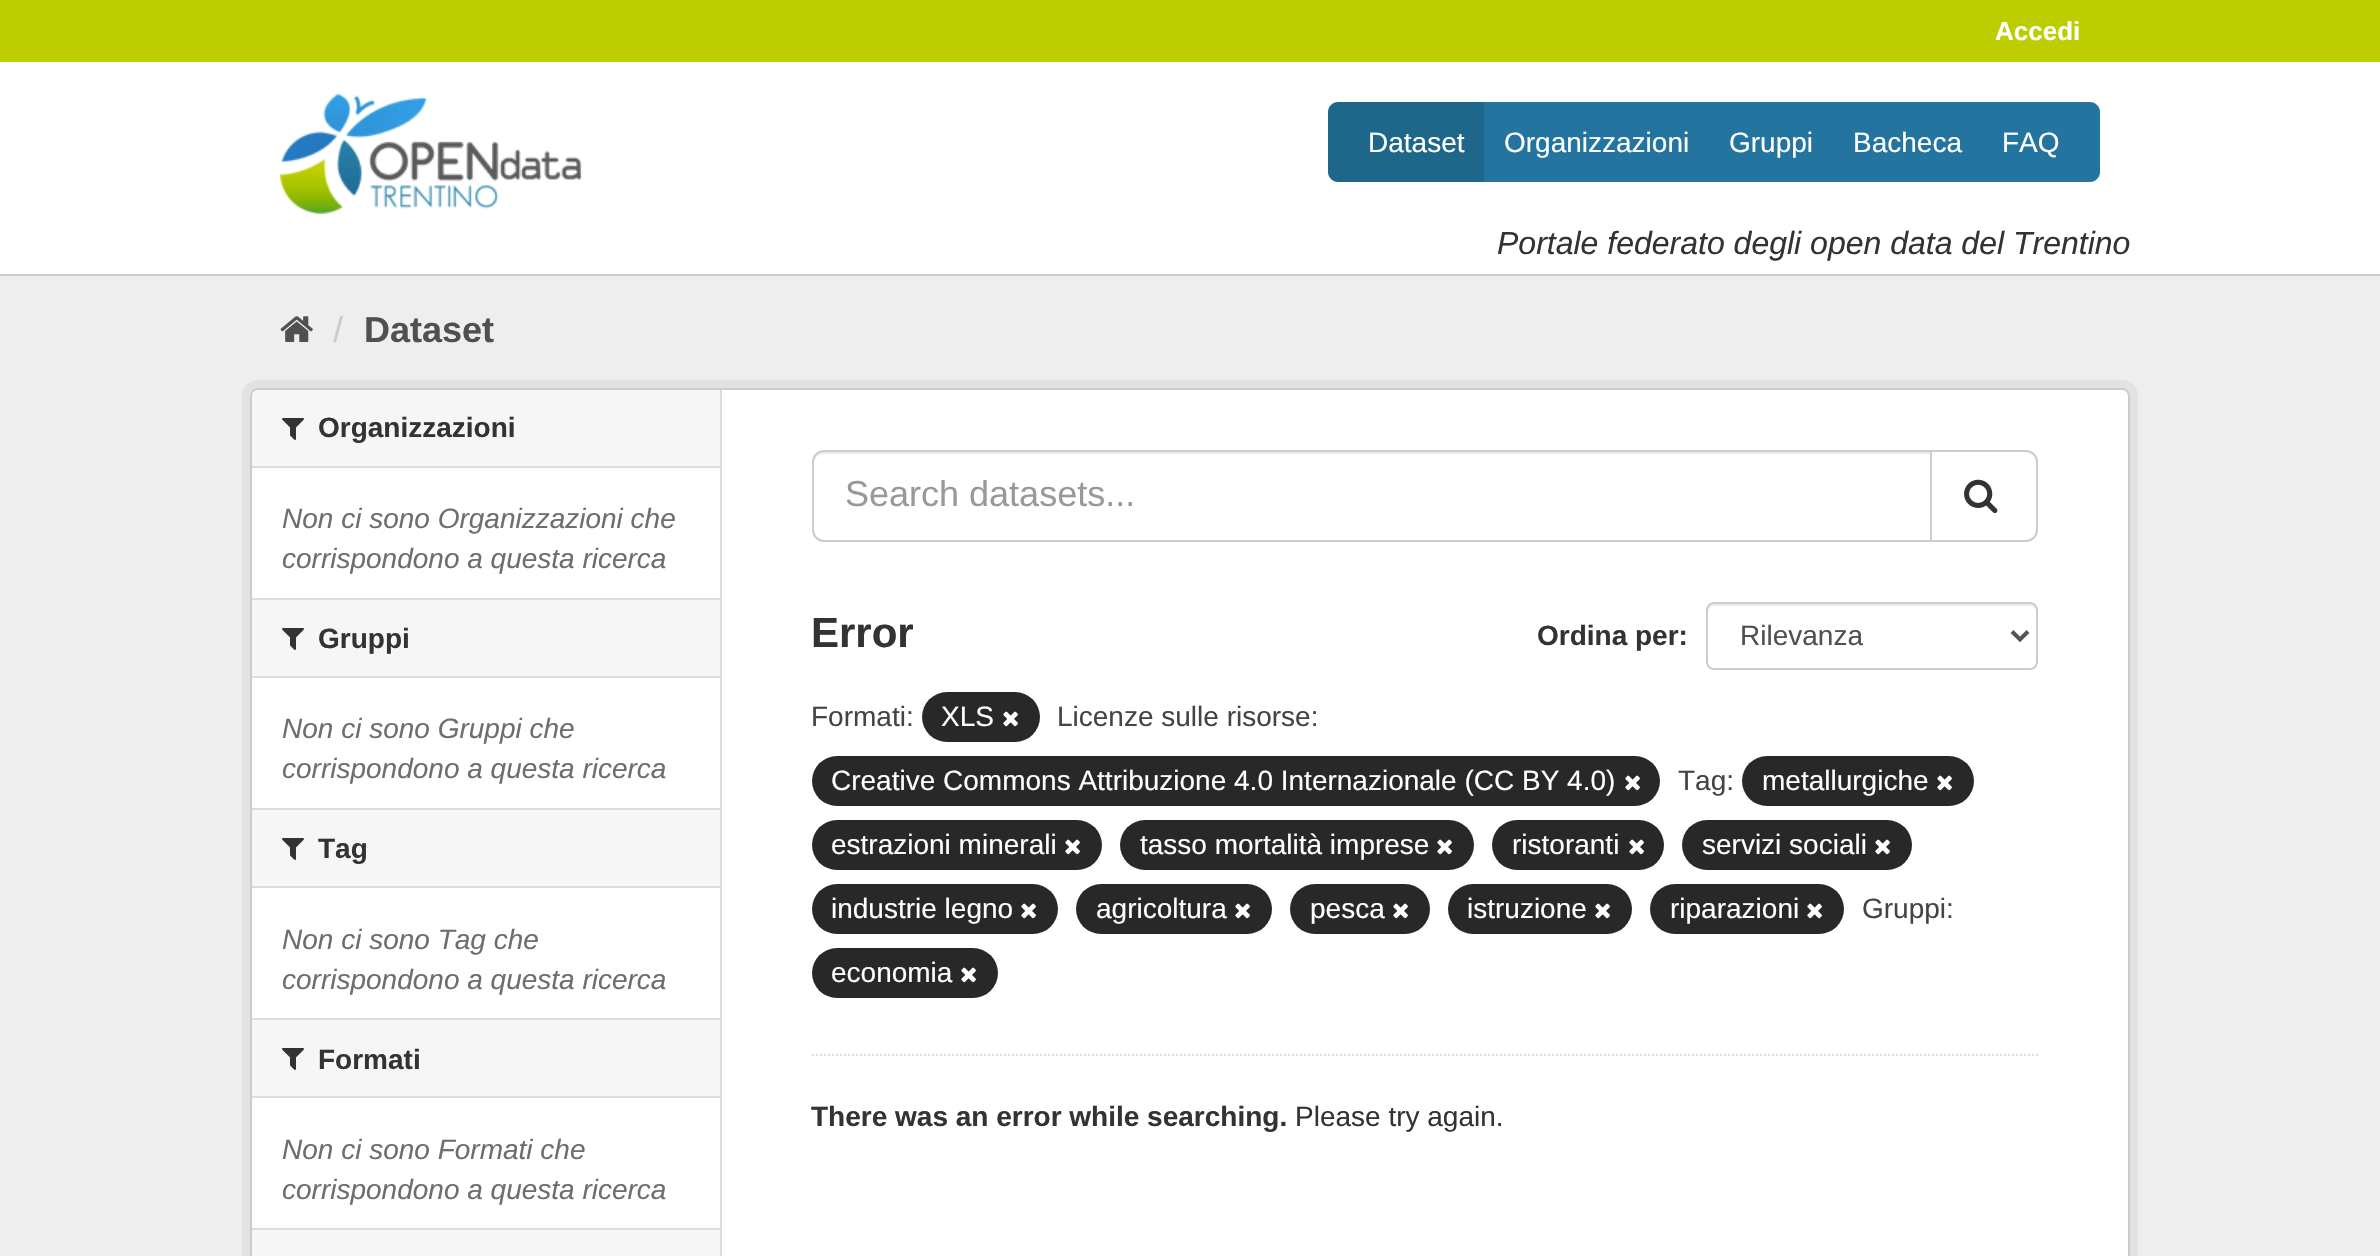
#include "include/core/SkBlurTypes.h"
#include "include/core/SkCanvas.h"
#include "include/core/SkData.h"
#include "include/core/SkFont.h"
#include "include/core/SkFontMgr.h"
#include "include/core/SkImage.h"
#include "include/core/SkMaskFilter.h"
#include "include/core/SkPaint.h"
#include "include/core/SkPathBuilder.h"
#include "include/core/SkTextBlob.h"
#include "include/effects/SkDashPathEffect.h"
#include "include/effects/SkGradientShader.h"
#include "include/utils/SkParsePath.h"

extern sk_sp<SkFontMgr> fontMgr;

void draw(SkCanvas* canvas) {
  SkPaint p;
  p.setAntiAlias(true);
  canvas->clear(SkColorSetRGB(188, 205, 0));
  p.setColor(SK_ColorWHITE);
  canvas->drawRect(SkRect::MakeLTRB(0, 62, 2380, 274), p);
  p.setColor(SkColorSetRGB(204, 204, 204));
  canvas->drawRect(SkRect::MakeLTRB(0, 274, 2380, 276), p);
  p.setColor(SkColorSetRGB(30, 102, 138));
  canvas->drawPath(SkPathBuilder().moveTo(1338, 102).lineTo(1484, 102).lineTo(1484, 182).lineTo(1338, 182).cubicTo(1332.5f, 182, 1328, 177.5f, 1328, 172).lineTo(1328, 112).cubicTo(1328, 106.5f, 1332.5f, 102, 1338, 102).close().detach(), p);
  p.setColor(SkColorSetRGB(35, 117, 159));
  canvas->drawRect(SkRect::MakeLTRB(1484, 102, 1982, 182), p);
  canvas->drawPath(SkPathBuilder().moveTo(1982, 102).lineTo(2090, 102).cubicTo(2095.5f, 102, 2100, 106.5f, 2100, 112).lineTo(2100, 172).cubicTo(2100, 177.5f, 2095.5f, 182, 2090, 182).lineTo(1982, 182).close().detach(), p);
  canvas->drawImageRect(SkImages::DeferredFromEncodedData(SkData::MakeFromFileName("images/1.png")), SkRect::MakeLTRB(280, 94, 582, 214), SkSamplingOptions());
  p.setColor(SkColorSetRGB(238, 238, 238));
  canvas->drawRect(SkRect::MakeLTRB(0, 276, 2380, 1256), p);
  canvas->drawImageRect(SkImages::DeferredFromEncodedData(SkData::MakeFromFileName("images/2.png")), SkRect::MakeLTRB(280, 316, 313, 342), SkSamplingOptions());
  p.setStyle(SkPaint::kStroke_Style);
  p.setStrokeWidth(8);
  p.setColor(SkColorSetRGB(226, 226, 226));
  canvas->drawRoundRect(SkRect::MakeLTRB(246, 384, 2134, 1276), 12, 12, p);
  p.setStyle(SkPaint::kFill_Style);
  p.setColor(SK_ColorWHITE);
  canvas->drawRoundRect(SkRect::MakeLTRB(251, 389, 2129, 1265), 7, 7, p);
  p.setStyle(SkPaint::kStroke_Style);
  p.setStrokeWidth(2);
  p.setColor(SkColorSetRGB(204, 204, 204));
  canvas->drawRoundRect(SkRect::MakeLTRB(251, 389, 2129, 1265), 7, 7, p);
  p.setStyle(SkPaint::kFill_Style);
  p.setColor(SkColorSetRGB(246, 246, 246));
  canvas->drawPath(SkPathBuilder().moveTo(258, 390).lineTo(720, 390).lineTo(720, 468).lineTo(252, 468).lineTo(252, 396).cubicTo(252, 392.5f, 254.5f, 390, 258, 390).close().detach(), p);
  p.setColor(SkColorSetRGB(221, 221, 221));
  canvas->drawRect(SkRect::MakeLTRB(252, 466, 720, 468), p);
  canvas->drawImageRect(SkImages::DeferredFromEncodedData(SkData::MakeFromFileName("images/3.png")), SkRect::MakeLTRB(282, 418, 304, 440), SkSamplingOptions());
  p.setColor(SkColorSetRGB(246, 246, 246));
  canvas->drawRect(SkRect::MakeLTRB(252, 600, 720, 676), p);
  p.setColor(SkColorSetRGB(221, 221, 221));
  canvas->drawRect(SkRect::MakeLTRB(252, 598, 720, 600), p);
  canvas->drawRect(SkRect::MakeLTRB(252, 676, 720, 678), p);
  canvas->drawImageRect(SkImages::DeferredFromEncodedData(SkData::MakeFromFileName("images/3.png")), SkRect::MakeLTRB(282, 628, 304, 650), SkSamplingOptions());
  p.setColor(SkColorSetRGB(246, 246, 246));
  canvas->drawRect(SkRect::MakeLTRB(252, 810, 720, 886), p);
  p.setColor(SkColorSetRGB(221, 221, 221));
  canvas->drawRect(SkRect::MakeLTRB(252, 808, 720, 810), p);
  canvas->drawRect(SkRect::MakeLTRB(252, 886, 720, 888), p);
  canvas->drawImageRect(SkImages::DeferredFromEncodedData(SkData::MakeFromFileName("images/3.png")), SkRect::MakeLTRB(282, 838, 304, 860), SkSamplingOptions());
  p.setColor(SkColorSetRGB(246, 246, 246));
  canvas->drawRect(SkRect::MakeLTRB(252, 1020, 720, 1096), p);
  p.setColor(SkColorSetRGB(221, 221, 221));
  canvas->drawRect(SkRect::MakeLTRB(252, 1018, 720, 1020), p);
  canvas->drawRect(SkRect::MakeLTRB(252, 1096, 720, 1098), p);
  canvas->drawImageRect(SkImages::DeferredFromEncodedData(SkData::MakeFromFileName("images/3.png")), SkRect::MakeLTRB(282, 1048, 304, 1070), SkSamplingOptions());
  p.setColor(SkColorSetRGB(246, 246, 246));
  canvas->drawRect(SkRect::MakeLTRB(252, 1230, 720, 1256), p);
  p.setColor(SkColorSetRGB(221, 221, 221));
  canvas->drawRect(SkRect::MakeLTRB(252, 1228, 720, 1230), p);
  canvas->drawRect(SkRect::MakeLTRB(720, 390, 722, 1256), p);
  p.setStyle(SkPaint::kStroke_Style);
  p.setPathEffect(SkDashPathEffect::Make({{2, 2}}, 0));
  canvas->drawPath(SkPathBuilder().moveTo(812, 1055).lineTo(2038, 1055).detach(), p);
  p.setPathEffect(nullptr);
  p.setStyle(SkPaint::kFill_Style);
  p.setColor(SkColorSetRGB(236, 236, 236));
  canvas->drawPath(SkPathBuilder().moveTo(824, 454).lineTo(1930, 454).lineTo(1930, 452).lineTo(824, 452).cubicTo(817, 452, 814, 458, 814, 464).cubicTo(814, 458, 818, 454, 824, 454).close().detach(), p);
  p.setStyle(SkPaint::kStroke_Style);
  p.setColor(SkColorSetRGB(204, 204, 204));
  canvas->drawPath(SkPathBuilder().moveTo(824, 451).lineTo(1931, 451).lineTo(1931, 541).lineTo(824, 541).cubicTo(818, 541, 813, 536, 813, 530).lineTo(813, 462).cubicTo(813, 456, 818, 451, 824, 451).close().detach(), p);
  p.setStyle(SkPaint::kFill_Style);
  p.setColor(SK_ColorWHITE);
  canvas->drawPath(SkPathBuilder().moveTo(1931, 451).lineTo(2026, 451).cubicTo(2032, 451, 2037, 456, 2037, 462).lineTo(2037, 530).cubicTo(2037, 536, 2032, 541, 2026, 541).lineTo(1931, 541).close().detach(), p);
  p.setStyle(SkPaint::kStroke_Style);
  p.setColor(SkColorSetRGB(204, 204, 204));
  canvas->drawPath(SkPathBuilder().moveTo(1931, 451).lineTo(2026, 451).cubicTo(2032, 451, 2037, 456, 2037, 462).lineTo(2037, 530).cubicTo(2037, 536, 2032, 541, 2026, 541).lineTo(1931, 541).close().detach(), p);
  canvas->drawImageRect(SkImages::DeferredFromEncodedData(SkData::MakeFromFileName("images/4.png")), SkRect::MakeLTRB(1964, 479, 1998, 514), SkSamplingOptions());
  p.setStyle(SkPaint::kFill_Style);
  p.setColor(SkColorSetRGB(236, 236, 236));
  canvas->drawPath(SkPathBuilder().moveTo(1714, 606).lineTo(2030, 606).cubicTo(2033, 606, 2036, 609, 2036, 612).cubicTo(2036, 608, 2035, 604, 2030, 604).lineTo(1714, 604).cubicTo(1709, 604, 1708, 608, 1708, 612).cubicTo(1708, 609, 1711, 606, 1714, 606).close().detach(), p);
  p.setStyle(SkPaint::kStroke_Style);
  p.setColor(SkColorSetRGB(204, 204, 204));
  canvas->drawRoundRect(SkRect::MakeLTRB(1707, 603, 2037, 669), 7, 7, p);
  p.setStrokeWidth(4);
  p.setColor(SkColorSetRGB(85, 85, 85));
  canvas->drawPath(SkPathBuilder().moveTo(2012, 631.5f).lineTo(2020, 639.5f).lineTo(2028, 631.5f).detach(), p);
  p.setStyle(SkPaint::kFill_Style);
  p.setColor(SkColorSetRGB(40, 40, 40));
  canvas->drawRoundRect(SkRect::MakeLTRB(922, 692, 1040, 742), 25, 25, p);
  canvas->drawImageRect(SkImages::DeferredFromEncodedData(SkData::MakeFromFileName("images/5.png")), SkRect::MakeLTRB(1003, 711, 1018, 727), SkSamplingOptions());
  canvas->drawRoundRect(SkRect::MakeLTRB(812, 756, 1660, 806), 25, 25, p);
  canvas->drawImageRect(SkImages::DeferredFromEncodedData(SkData::MakeFromFileName("images/5.png")), SkRect::MakeLTRB(1625, 775, 1640, 791), SkSamplingOptions());
  canvas->drawRoundRect(SkRect::MakeLTRB(1742, 756, 1974, 806), 25, 25, p);
  canvas->drawImageRect(SkImages::DeferredFromEncodedData(SkData::MakeFromFileName("images/5.png")), SkRect::MakeLTRB(1937, 775, 1952, 791), SkSamplingOptions());
  canvas->drawRoundRect(SkRect::MakeLTRB(812, 820, 1102, 870), 25, 25, p);
  canvas->drawImageRect(SkImages::DeferredFromEncodedData(SkData::MakeFromFileName("images/5.png")), SkRect::MakeLTRB(1065, 839, 1080, 855), SkSamplingOptions());
  canvas->drawRoundRect(SkRect::MakeLTRB(1120, 820, 1474, 870), 25, 25, p);
  canvas->drawImageRect(SkImages::DeferredFromEncodedData(SkData::MakeFromFileName("images/5.png")), SkRect::MakeLTRB(1437, 839, 1452, 855), SkSamplingOptions());
  canvas->drawRoundRect(SkRect::MakeLTRB(1492, 820, 1664, 870), 25, 25, p);
  canvas->drawImageRect(SkImages::DeferredFromEncodedData(SkData::MakeFromFileName("images/5.png")), SkRect::MakeLTRB(1629, 839, 1644, 855), SkSamplingOptions());
  canvas->drawRoundRect(SkRect::MakeLTRB(1682, 820, 1912, 870), 25, 25, p);
  canvas->drawImageRect(SkImages::DeferredFromEncodedData(SkData::MakeFromFileName("images/5.png")), SkRect::MakeLTRB(1875, 839, 1890, 855), SkSamplingOptions());
  canvas->drawRoundRect(SkRect::MakeLTRB(812, 884, 1058, 934), 25, 25, p);
  canvas->drawImageRect(SkImages::DeferredFromEncodedData(SkData::MakeFromFileName("images/5.png")), SkRect::MakeLTRB(1021, 903, 1036, 919), SkSamplingOptions());
  canvas->drawRoundRect(SkRect::MakeLTRB(1076, 884, 1272, 934), 25, 25, p);
  canvas->drawImageRect(SkImages::DeferredFromEncodedData(SkData::MakeFromFileName("images/5.png")), SkRect::MakeLTRB(1235, 903, 1250, 919), SkSamplingOptions());
  canvas->drawRoundRect(SkRect::MakeLTRB(1290, 884, 1430, 934), 25, 25, p);
  canvas->drawImageRect(SkImages::DeferredFromEncodedData(SkData::MakeFromFileName("images/5.png")), SkRect::MakeLTRB(1393, 903, 1408, 919), SkSamplingOptions());
  canvas->drawRoundRect(SkRect::MakeLTRB(1448, 884, 1632, 934), 25, 25, p);
  canvas->drawImageRect(SkImages::DeferredFromEncodedData(SkData::MakeFromFileName("images/5.png")), SkRect::MakeLTRB(1595, 903, 1610, 919), SkSamplingOptions());
  canvas->drawRoundRect(SkRect::MakeLTRB(1650, 884, 1844, 934), 25, 25, p);
  canvas->drawImageRect(SkImages::DeferredFromEncodedData(SkData::MakeFromFileName("images/5.png")), SkRect::MakeLTRB(1807, 903, 1822, 919), SkSamplingOptions());
  canvas->drawRoundRect(SkRect::MakeLTRB(812, 948, 998, 998), 25, 25, p);
  canvas->drawImageRect(SkImages::DeferredFromEncodedData(SkData::MakeFromFileName("images/5.png")), SkRect::MakeLTRB(961, 967, 976, 983), SkSamplingOptions());
  SkFont font1(fontMgr->matchFamilyStyle("Liberation Sans", SkFontStyle::Bold()), 26);
  font1.setSubpixel(true);
  p.setColor(SK_ColorWHITE);
  canvas->drawString("Accedi", 1995, 40, font1, p);
  SkFont font2(fontMgr->matchFamilyStyle("Liberation Sans", SkFontStyle::Normal()), 28);
  font2.setSubpixel(true);
  canvas->drawString("Dataset", 1368, 152, font2, p);
  canvas->drawString("Organizzazioni", 1504, 152, font2, p);
  canvas->drawString("Gruppi", 1729, 152, font2, p);
  canvas->drawString("Bacheca", 1853, 152, font2, p);
  canvas->drawString("FAQ", 2002, 152, font2, p);
  SkFont font3(fontMgr->matchFamilyStyle("Liberation Sans", SkFontStyle::Italic()), 32);
  font3.setSubpixel(true);
  p.setColor(SkColorSetRGB(51, 51, 51));
  canvas->drawString("Portale federato degli open data del Trentino", 1497, 254, font3, p);
  SkFont font4(fontMgr->matchFamilyStyle("Liberation Sans", SkFontStyle::Normal()), 36);
  font4.setSubpixel(true);
  p.setColor(SkColorSetRGB(204, 204, 204));
  canvas->drawString("/", 333, 342, font4, p);
  SkFont font5(fontMgr->matchFamilyStyle("Liberation Sans", SkFontStyle::Bold()), 36);
  font5.setSubpixel(true);
  p.setColor(SkColorSetRGB(80, 80, 80));
  canvas->drawString("Dataset", 364, 342, font5, p);
  SkFont font6(fontMgr->matchFamilyStyle("Liberation Sans", SkFontStyle::Bold()), 28);
  font6.setSubpixel(true);
  p.setColor(SkColorSetRGB(51, 51, 51));
  canvas->drawString("Organizzazioni", 318, 437, font6, p);
  SkFont font7(fontMgr->matchFamilyStyle("Liberation Sans", SkFontStyle::Italic()), 28);
  font7.setSubpixel(true);
  p.setColor(SkColorSetRGB(110, 110, 110));
  canvas->drawString("Non ci sono Organizzazioni che", 282, 528, font7, p);
  canvas->drawString("corrispondono a questa ricerca", 282, 568, font7, p);
  p.setColor(SkColorSetRGB(51, 51, 51));
  canvas->drawString("Gruppi", 318, 648, font6, p);
  p.setColor(SkColorSetRGB(110, 110, 110));
  canvas->drawString("Non ci sono Gruppi che", 282, 738, font7, p);
  canvas->drawString("corrispondono a questa ricerca", 282, 778, font7, p);
  p.setColor(SkColorSetRGB(51, 51, 51));
  canvas->drawString("Tag", 318, 858, font6, p);
  p.setColor(SkColorSetRGB(110, 110, 110));
  canvas->drawString("Non ci sono Tag che", 282, 949, font7, p);
  canvas->drawString("corrispondono a questa ricerca", 282, 989, font7, p);
  p.setColor(SkColorSetRGB(51, 51, 51));
  canvas->drawString("Formati", 318, 1069, font6, p);
  p.setColor(SkColorSetRGB(110, 110, 110));
  canvas->drawString("Non ci sono Formati che", 282, 1159, font7, p);
  canvas->drawString("corrispondono a questa ricerca", 282, 1199, font7, p);
  p.setColor(SkColorSetRGB(153, 153, 153));
  canvas->drawString("Search datasets...", 845, 506, font4, p);
  SkFont font8(fontMgr->matchFamilyStyle("Liberation Sans", SkFontStyle::Bold()), 42);
  font8.setSubpixel(true);
  p.setColor(SkColorSetRGB(51, 51, 51));
  canvas->drawString("Error", 811, 647, font8, p);
  canvas->drawString("Ordina per:", 1537, 645, font6, p);
  p.setColor(SkColorSetRGB(80, 80, 80));
  canvas->drawString("Rilevanza", 1740, 645, font2, p);
  p.setColor(SkColorSetRGB(68, 68, 68));
  canvas->drawString("Formati:", 811, 726, font2, p);
  p.setColor(SK_ColorWHITE);
  canvas->drawString("XLS", 941, 726, font2, p);
  p.setColor(SkColorSetRGB(68, 68, 68));
  canvas->drawString("Licenze sulle risorse:", 1057, 726, font2, p);
  p.setColor(SK_ColorWHITE);
  canvas->drawString("Creative Commons Attribuzione 4.0 Internazionale (CC BY 4.0)", 831, 790, font2, p);
  p.setColor(SkColorSetRGB(68, 68, 68));
  canvas->drawString("Tag:", 1678, 790, font2, p);
  p.setColor(SK_ColorWHITE);
  canvas->drawString("metallurgiche", 1762, 790, font2, p);
  canvas->drawString("estrazioni minerali", 831, 854, font2, p);
  canvas->drawString("tasso mortalità imprese", 1140, 854, font2, p);
  canvas->drawString("ristoranti", 1512, 854, font2, p);
  canvas->drawString("servizi sociali", 1702, 854, font2, p);
  canvas->drawString("industrie legno", 831, 918, font2, p);
  canvas->drawString("agricoltura", 1096, 918, font2, p);
  canvas->drawString("pesca", 1310, 918, font2, p);
  canvas->drawString("istruzione", 1467, 918, font2, p);
  canvas->drawString("riparazioni", 1670, 918, font2, p);
  p.setColor(SkColorSetRGB(68, 68, 68));
  canvas->drawString("Gruppi:", 1862, 918, font2, p);
  p.setColor(SK_ColorWHITE);
  canvas->drawString("economia", 831, 982, font2, p);
  p.setColor(SkColorSetRGB(51, 51, 51));
  canvas->drawString("There was an error while searching.", 811, 1126, font6, p);
  canvas->drawString("Please try again.", 1295, 1126, font2, p);
}
